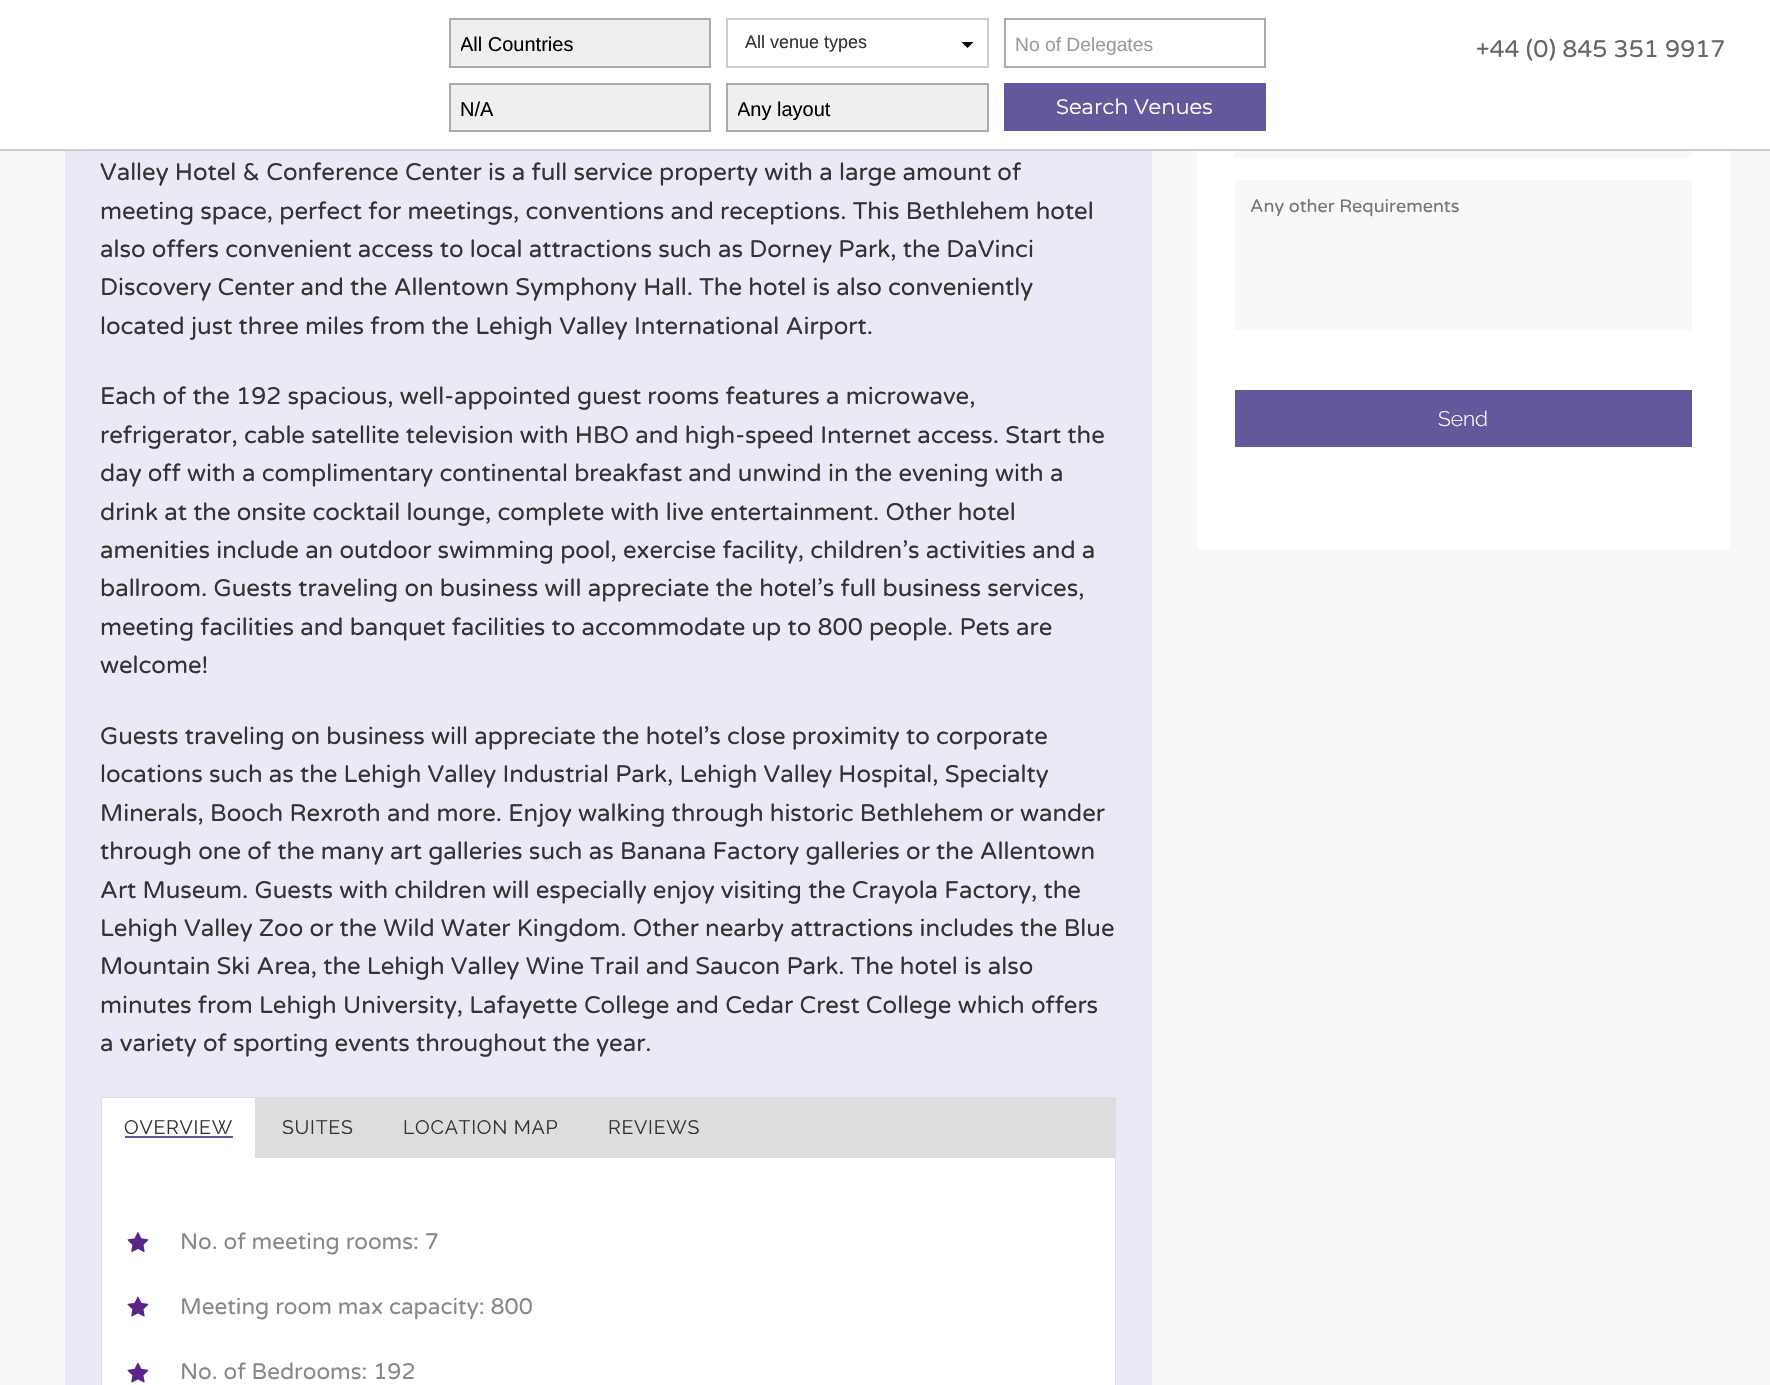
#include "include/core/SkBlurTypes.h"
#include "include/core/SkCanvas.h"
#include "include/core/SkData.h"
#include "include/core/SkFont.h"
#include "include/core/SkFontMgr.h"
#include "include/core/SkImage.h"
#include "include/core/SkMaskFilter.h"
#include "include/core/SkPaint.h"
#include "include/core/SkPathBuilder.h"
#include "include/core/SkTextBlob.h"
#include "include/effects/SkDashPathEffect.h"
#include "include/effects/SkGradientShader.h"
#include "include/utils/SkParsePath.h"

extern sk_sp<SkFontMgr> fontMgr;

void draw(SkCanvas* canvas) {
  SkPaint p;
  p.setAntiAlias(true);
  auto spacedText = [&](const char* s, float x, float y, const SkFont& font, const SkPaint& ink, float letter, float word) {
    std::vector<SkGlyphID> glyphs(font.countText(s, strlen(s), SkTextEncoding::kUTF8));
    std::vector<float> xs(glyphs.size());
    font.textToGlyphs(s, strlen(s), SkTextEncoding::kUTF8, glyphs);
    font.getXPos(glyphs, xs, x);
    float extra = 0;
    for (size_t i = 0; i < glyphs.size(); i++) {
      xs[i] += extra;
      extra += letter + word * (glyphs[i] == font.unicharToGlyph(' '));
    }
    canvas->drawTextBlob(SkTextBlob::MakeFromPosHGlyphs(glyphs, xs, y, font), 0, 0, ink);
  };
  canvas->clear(SkColorSetRGB(248, 248, 248));
  p.setColor(SK_ColorWHITE);
  canvas->drawRect(SkRect::MakeLTRB(0, 0, 1770, 149), p);
  p.setColor(SkColorSetRGB(204, 204, 204));
  canvas->drawRect(SkRect::MakeLTRB(0, 149, 1770, 151), p);
  p.setColor(SkColorSetRGB(239, 239, 239));
  canvas->drawRect(SkRect::MakeLTRB(450, 19, 710, 67), p);
  p.setStyle(SkPaint::kStroke_Style);
  p.setStrokeWidth(2);
  p.setColor(SkColorSetRGB(170, 170, 170));
  canvas->drawRect(SkRect::MakeLTRB(450, 19, 710, 67), p);
  p.setStyle(SkPaint::kFill_Style);
  p.setColor(SkColorSetRGB(239, 239, 239));
  canvas->drawRect(SkRect::MakeLTRB(450, 84, 710, 131), p);
  p.setStyle(SkPaint::kStroke_Style);
  p.setColor(SkColorSetRGB(170, 170, 170));
  canvas->drawRect(SkRect::MakeLTRB(450, 84, 710, 131), p);
  p.setColor(SkColorSetRGB(204, 204, 204));
  canvas->drawRect(SkRect::MakeLTRB(727, 19, 988, 67), p);
  p.setStyle(SkPaint::kFill_Style);
  p.setColor(SK_ColorBLACK);
  canvas->drawPath(SkPathBuilder().moveTo(961.5f, 42).lineTo(973.5f, 42).lineTo(967.5f, 48).close().detach(), p);
  p.setColor(SkColorSetRGB(239, 239, 239));
  canvas->drawRect(SkRect::MakeLTRB(727, 84, 988, 131), p);
  p.setStyle(SkPaint::kStroke_Style);
  p.setColor(SkColorSetRGB(170, 170, 170));
  canvas->drawRect(SkRect::MakeLTRB(727, 84, 988, 131), p);
  canvas->drawRect(SkRect::MakeLTRB(1005, 19, 1265, 67), p);
  p.setStyle(SkPaint::kFill_Style);
  p.setColor(SkColorSetRGB(99, 88, 156));
  canvas->drawRect(SkRect::MakeLTRB(1004, 83, 1266, 131), p);
  p.setColor(SkColorSetRGB(235, 233, 245));
  canvas->drawRect(SkRect::MakeLTRB(65, 151, 1152, 1385), p);
  p.setColor(SkColorSetRGB(221, 221, 221));
  canvas->drawRect(SkRect::MakeLTRB(101, 1097, 1116, 1385), p);
  p.setColor(SK_ColorWHITE);
  canvas->drawRect(SkRect::MakeLTRB(102, 1098, 255, 1158), p);
  p.setColor(SkColorSetRGB(99, 88, 156));
  canvas->drawRect(SkRect::MakeLTRB(125, 1136, 233, 1138), p);
  p.setColor(SK_ColorWHITE);
  canvas->drawRect(SkRect::MakeLTRB(102, 1158, 1115, 1385), p);
  canvas->drawImageRect(SkImages::DeferredFromEncodedData(SkData::MakeFromFileName("images/1.png")), SkRect::MakeLTRB(127, 1232, 149, 1252), SkSamplingOptions());
  canvas->drawImageRect(SkImages::DeferredFromEncodedData(SkData::MakeFromFileName("images/2.png")), SkRect::MakeLTRB(127, 1296, 149, 1317), SkSamplingOptions());
  canvas->drawImageRect(SkImages::DeferredFromEncodedData(SkData::MakeFromFileName("images/2.png")), SkRect::MakeLTRB(127, 1362, 149, 1383), SkSamplingOptions());
  canvas->drawRect(SkRect::MakeLTRB(1197, 151, 1730, 549), p);
  p.setColor(SkColorSetRGB(248, 248, 248));
  canvas->drawRect(SkRect::MakeLTRB(1235, 151, 1692, 158), p);
  canvas->drawRect(SkRect::MakeLTRB(1235, 180, 1692, 330), p);
  p.setColor(SkColorSetRGB(99, 88, 156));
  canvas->drawRect(SkRect::MakeLTRB(1235, 390, 1692, 447), p);
  canvas->save();
  canvas->clipRect(SkRect::MakeLTRB(461, 33, 710, 56));
  SkFont font1(fontMgr->matchFamilyStyle("Liberation Sans", SkFontStyle::Normal()), 20);
  font1.setSubpixel(true);
  p.setColor(SK_ColorBLACK);
  canvas->drawString("All Countries", 460, 51, font1, p);
  canvas->restore();
  canvas->drawString("N/A", 460, 116, font1, p);
  SkFont font2(fontMgr->matchFamilyStyle("Liberation Sans", SkFontStyle::Normal()), 18);
  font2.setSubpixel(true);
  p.setColor(SkColorSetRGB(51, 51, 51));
  canvas->drawString("All venue types", 745, 48, font2, p);
  canvas->save();
  canvas->clipRect(SkRect::MakeLTRB(738, 98, 987, 120));
  p.setColor(SK_ColorBLACK);
  canvas->drawString("Any layout", 737, 116, font1, p);
  canvas->restore();
  SkFont font3(fontMgr->matchFamilyStyle("Liberation Sans", SkFontStyle::Normal()), 19.25f);
  font3.setSubpixel(true);
  p.setColor(SkColorSetRGB(154, 154, 154));
  canvas->drawString("No of Delegates", 1015, 51, font3, p);
  SkFont font4(fontMgr->matchFamilyStyle("Montserrat", SkFontStyle::Normal()), 21);
  font4.setSubpixel(true);
  p.setColor(SK_ColorWHITE);
  canvas->drawString("Search Venues", 1056, 114, font4, p);
  SkFont font5(fontMgr->matchFamilyStyle("Varela Round", SkFontStyle::Normal()), 24);
  font5.setSubpixel(true);
  p.setColor(SkColorSetRGB(102, 102, 102));
  canvas->drawString("+44 (0) 845 351 9917", 1476, 57, font5, p);
  p.setColor(SkColorSetRGB(51, 51, 51));
  canvas->drawString("Valley Hotel & Conference Center is a full service property with a large amount of", 100, 180, font5, p);
  canvas->drawString("meeting space, perfect for meetings, conventions and receptions. This Bethlehem hotel", 100, 219, font5, p);
  canvas->drawString("also offers convenient access to local attractions such as Dorney Park, the DaVinci", 100, 257, font5, p);
  canvas->drawString("Discovery Center and the Allentown Symphony Hall. The hotel is also conveniently", 100, 295, font5, p);
  canvas->drawString("located just three miles from the Lehigh Valley International Airport.", 100, 334, font5, p);
  canvas->drawString("Each of the 192 spacious, well-appointed guest rooms features a microwave,", 100, 404, font5, p);
  canvas->drawString("refrigerator, cable satellite television with HBO and high-speed Internet access. Start the", 100, 443, font5, p);
  canvas->drawString("day off with a complimentary continental breakfast and unwind in the evening with a", 100, 481, font5, p);
  canvas->drawString("drink at the onsite cocktail lounge, complete with live entertainment. Other hotel", 100, 520, font5, p);
  canvas->drawString("amenities include an outdoor swimming pool, exercise facility, children’s activities and a", 100, 558, font5, p);
  canvas->drawString("ballroom. Guests traveling on business will appreciate the hotel’s full business services,", 100, 596, font5, p);
  canvas->drawString("meeting facilities and banquet facilities to accommodate up to 800 people. Pets are", 100, 635, font5, p);
  canvas->drawString("welcome!", 100, 673, font5, p);
  canvas->drawString("Guests traveling on business will appreciate the hotel’s close proximity to corporate", 100, 744, font5, p);
  canvas->drawString("locations such as the Lehigh Valley Industrial Park, Lehigh Valley Hospital, Specialty", 100, 782, font5, p);
  canvas->drawString("Minerals, Booch Rexroth and more. Enjoy walking through historic Bethlehem or wander", 100, 821, font5, p);
  canvas->drawString("through one of the many art galleries such as Banana Factory galleries or the Allentown", 100, 859, font5, p);
  canvas->drawString("Art Museum. Guests with children will especially enjoy visiting the Crayola Factory, the", 100, 898, font5, p);
  canvas->drawString("Lehigh Valley Zoo or the Wild Water Kingdom. Other nearby attractions includes the Blue", 100, 936, font5, p);
  canvas->drawString("Mountain Ski Area, the Lehigh Valley Wine Trail and Saucon Park. The hotel is also", 100, 974, font5, p);
  canvas->drawString("minutes from Lehigh University, Lafayette College and Cedar Crest College which offers", 100, 1013, font5, p);
  canvas->drawString("a variety of sporting events throughout the year.", 100, 1051, font5, p);
  SkFont font6(fontMgr->matchFamilyStyle("Raleway", SkFontStyle::Normal()), 19.5f);
  font6.setSubpixel(true);
  spacedText("OVERVIEW", 124, 1134, font6, p, 0.75f, 0);
  spacedText("SUITES", 282, 1134, font6, p, 0.75f, 0);
  spacedText("LOCATION MAP", 403, 1134, font6, p, 0.75f, 0);
  spacedText("REVIEWS", 608, 1134, font6, p, 0.75f, 0);
  SkFont font7(fontMgr->matchFamilyStyle("Varela Round", SkFontStyle::Normal()), 22.5f);
  font7.setSubpixel(true);
  p.setColor(SkColorSetRGB(136, 136, 136));
  canvas->drawString("No. of meeting rooms: 7", 180, 1249, font7, p);
  canvas->drawString("Meeting room max capacity: 800", 180, 1314, font7, p);
  canvas->drawString("No. of Bedrooms: 192", 180, 1379, font7, p);
  SkFont font8(fontMgr->matchFamilyStyle("Varela Round", SkFontStyle::Normal()), 18);
  font8.setSubpixel(true);
  p.setColor(SkColorSetRGB(117, 117, 117));
  canvas->drawString("Any other Requirements", 1250, 212, font8, p);
  SkFont font9(fontMgr->matchFamilyStyle("Raleway", SkFontStyle(300, SkFontStyle::kNormal_Width, SkFontStyle::kUpright_Slant)), 21);
  font9.setSubpixel(true);
  p.setColor(SK_ColorWHITE);
  canvas->drawString("Send", 1438, 426, font9, p);
}
